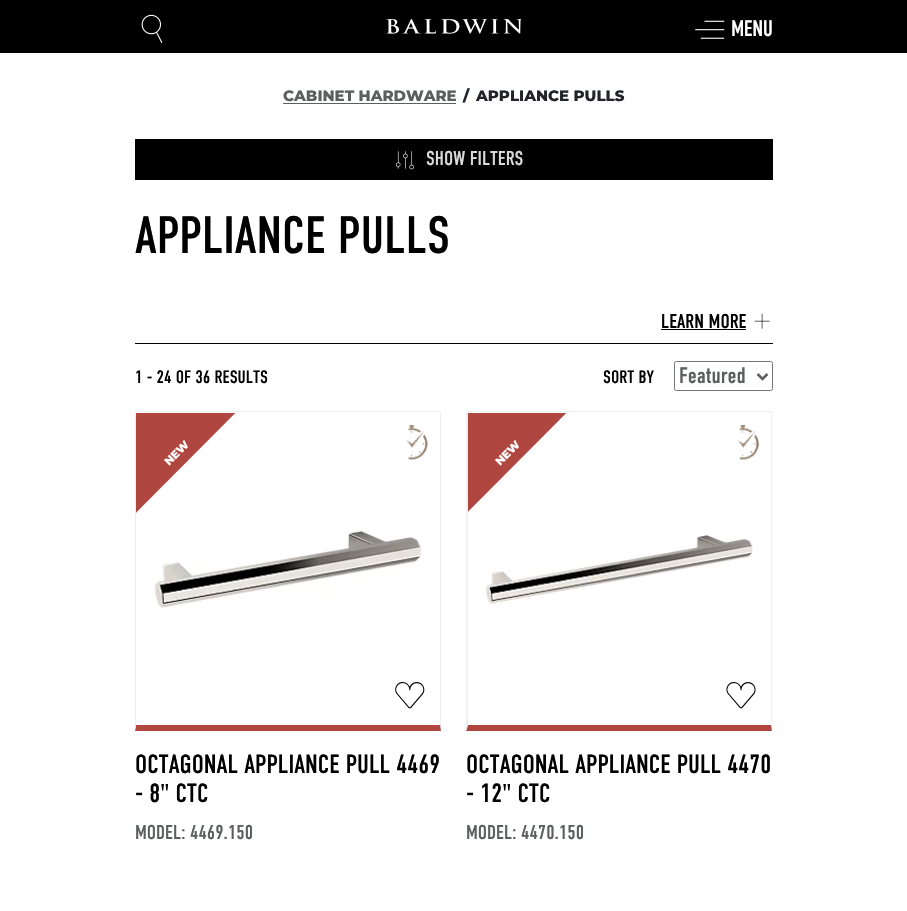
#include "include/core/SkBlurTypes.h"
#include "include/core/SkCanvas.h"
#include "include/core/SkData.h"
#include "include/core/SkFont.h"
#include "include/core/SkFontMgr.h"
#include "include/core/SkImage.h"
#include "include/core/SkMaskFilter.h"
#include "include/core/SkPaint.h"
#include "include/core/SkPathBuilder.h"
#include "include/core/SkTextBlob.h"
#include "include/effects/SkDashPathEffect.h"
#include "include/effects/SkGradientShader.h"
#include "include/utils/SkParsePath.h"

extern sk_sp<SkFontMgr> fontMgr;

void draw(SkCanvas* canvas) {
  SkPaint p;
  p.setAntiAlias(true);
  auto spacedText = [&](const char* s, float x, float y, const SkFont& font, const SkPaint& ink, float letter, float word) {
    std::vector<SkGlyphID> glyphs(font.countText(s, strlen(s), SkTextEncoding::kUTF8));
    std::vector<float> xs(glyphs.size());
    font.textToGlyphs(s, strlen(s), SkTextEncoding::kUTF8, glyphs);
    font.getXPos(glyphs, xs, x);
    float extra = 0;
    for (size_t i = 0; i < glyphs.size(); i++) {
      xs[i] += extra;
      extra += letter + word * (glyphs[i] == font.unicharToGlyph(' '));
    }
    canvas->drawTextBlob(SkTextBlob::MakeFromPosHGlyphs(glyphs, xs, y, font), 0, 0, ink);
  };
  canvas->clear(SK_ColorWHITE);
  p.setColor(SK_ColorBLACK);
  canvas->drawRect(SkRect::MakeLTRB(0, 0, 907, 53), p);
  canvas->drawImageRect(SkImages::DeferredFromEncodedData(SkData::MakeFromFileName("images/1.png")), SkRect::MakeLTRB(141, 14, 163, 43), SkSamplingOptions());
  canvas->drawImageRect(SkImages::DeferredFromEncodedData(SkData::MakeFromFileName("images/2.png")), SkRect::MakeLTRB(386, 19, 521, 34), SkSamplingOptions());
  canvas->drawImageRect(SkImages::DeferredFromEncodedData(SkData::MakeFromFileName("images/3.png")), SkRect::MakeLTRB(695, 20, 725, 39), SkSamplingOptions());
  p.setColor(SkColorSetRGB(93, 95, 95));
  canvas->drawRect(SkRect::MakeLTRB(283, 103, 456, 104), p);
  p.setColor(SK_ColorBLACK);
  canvas->drawRect(SkRect::MakeLTRB(135, 139, 773, 180), p);
  canvas->drawImageRect(SkImages::DeferredFromEncodedData(SkData::MakeFromFileName("images/4.png")), SkRect::MakeLTRB(395, 151, 414, 170), SkSamplingOptions());
  canvas->drawRect(SkRect::MakeLTRB(661, 329, 746, 330), p);
  canvas->drawImageRect(SkImages::DeferredFromEncodedData(SkData::MakeFromFileName("images/5.png")), SkRect::MakeLTRB(754, 313, 770, 329), SkSamplingOptions());
  canvas->drawRect(SkRect::MakeLTRB(135, 343, 773, 344), p);
  p.setStyle(SkPaint::kStroke_Style);
  p.setStrokeWidth(1);
  p.setColor(SkColorSetRGB(118, 118, 118));
  canvas->drawRoundRect(SkRect::MakeLTRB(674.5f, 361.5f, 772.5f, 390.5f), 2, 2, p);
  p.setStrokeWidth(2.5f);
  p.setColor(SkColorSetRGB(93, 95, 95));
  canvas->drawPath(SkPathBuilder().moveTo(757.5f, 374).lineTo(762.5f, 379).lineTo(767.5f, 374).detach(), p);
  p.setStyle(SkPaint::kFill_Style);
  p.setColor(SkColorSetRGB(239, 239, 239));
  canvas->drawRect(SkRect::MakeLTRB(135, 411, 441, 412), p);
  canvas->drawPath(SkPathBuilder().moveTo(441, 411).lineTo(441, 731).lineTo(440, 725).lineTo(440, 412).close().detach(), p);
  p.setColor(SkColorSetRGB(175, 70, 64));
  canvas->drawPath(SkPathBuilder().moveTo(441, 731).lineTo(135, 731).lineTo(136, 725).lineTo(440, 725).close().detach(), p);
  p.setColor(SkColorSetRGB(239, 239, 239));
  canvas->drawPath(SkPathBuilder().moveTo(135, 731).lineTo(135, 411).lineTo(136, 412).lineTo(136, 725).close().detach(), p);
  canvas->save();
  canvas->clipRect(SkRect::MakeLTRB(136, 413, 440, 725));
  p.setColor(SkColorSetRGB(175, 70, 64));
  canvas->drawPath(SkPathBuilder().moveTo(-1, 539).lineTo(264, 274).lineTo(319, 329).lineTo(54, 595).close().detach(), p);
  canvas->restore();
  canvas->drawImageRect(SkImages::DeferredFromEncodedData(SkData::MakeFromFileName("images/6.png")), SkRect::MakeLTRB(154, 530, 422, 608), SkSamplingOptions());
  canvas->drawImageRect(SkImages::DeferredFromEncodedData(SkData::MakeFromFileName("images/7.png")), SkRect::MakeLTRB(406, 425, 428, 460), SkSamplingOptions());
  canvas->drawImageRect(SkImages::DeferredFromEncodedData(SkData::MakeFromFileName("images/8.png")), SkRect::MakeLTRB(395, 682, 425, 709), SkSamplingOptions());
  p.setColor(SkColorSetRGB(239, 239, 239));
  canvas->drawRect(SkRect::MakeLTRB(466, 411, 773, 412), p);
  canvas->drawPath(SkPathBuilder().moveTo(772, 411).lineTo(772, 731).lineTo(771, 725).lineTo(771, 412).close().detach(), p);
  p.setColor(SkColorSetRGB(175, 70, 64));
  canvas->drawPath(SkPathBuilder().moveTo(772, 731).lineTo(466, 731).lineTo(468, 725).lineTo(771, 725).close().detach(), p);
  p.setColor(SkColorSetRGB(239, 239, 239));
  canvas->drawPath(SkPathBuilder().moveTo(466, 731).lineTo(466, 411).lineTo(468, 412).lineTo(468, 725).close().detach(), p);
  canvas->drawImageRect(SkImages::DeferredFromEncodedData(SkData::MakeFromFileName("images/9.png")), SkRect::MakeLTRB(467, 418, 753, 721), SkSamplingOptions());
  canvas->save();
  canvas->clipRect(SkRect::MakeLTRB(468, 413, 771, 725));
  p.setColor(SkColorSetRGB(175, 70, 64));
  canvas->drawPath(SkPathBuilder().moveTo(330, 539).lineTo(595, 274).lineTo(650, 329).lineTo(385, 595).close().detach(), p);
  canvas->restore();
  canvas->drawImageRect(SkImages::DeferredFromEncodedData(SkData::MakeFromFileName("images/10.png")), SkRect::MakeLTRB(737, 425, 759, 460), SkSamplingOptions());
  canvas->drawImageRect(SkImages::DeferredFromEncodedData(SkData::MakeFromFileName("images/11.png")), SkRect::MakeLTRB(726, 682, 756, 709), SkSamplingOptions());
  SkFont font1(fontMgr->matchFamilyStyle("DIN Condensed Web", SkFontStyle::Normal()), 22.5f);
  font1.setSubpixel(true);
  p.setColor(SK_ColorWHITE);
  spacedText("MENU", 731, 36, font1, p, -0.5f, 0);
  SkFont font2(fontMgr->matchFamilyStyle("Montserrat", SkFontStyle(800, SkFontStyle::kNormal_Width, SkFontStyle::kUpright_Slant)), 15);
  font2.setSubpixel(true);
  p.setColor(SkColorSetRGB(93, 95, 95));
  canvas->drawString("CABINET HARDWARE", 283, 101, font2, p);
  p.setColor(SkColorSetRGB(33, 37, 41));
  canvas->drawString("/", 463, 101, font2, p);
  canvas->drawString("APPLIANCE PULLS", 476, 101, font2, p);
  SkFont font3(fontMgr->matchFamilyStyle("DIN Condensed Web", SkFontStyle::Normal()), 20);
  font3.setSubpixel(true);
  p.setColor(SkColorSetRGB(217, 217, 217));
  canvas->drawString("SHOW FILTERS", 426, 165, font3, p);
  SkFont font4(fontMgr->matchFamilyStyle("DIN Condensed Web", SkFontStyle::Normal()), 52.5f);
  font4.setSubpixel(true);
  p.setColor(SK_ColorBLACK);
  canvas->drawString("APPLIANCE PULLS", 135, 253, font4, p);
  canvas->drawString("LEARN MORE", 661, 328, font3, p);
  SkFont font5(fontMgr->matchFamilyStyle("DIN Condensed Web", SkFontStyle::Normal()), 18);
  font5.setSubpixel(true);
  canvas->drawString("1 - 24 OF 36 RESULTS", 135, 383, font5, p);
  canvas->drawString("SORT BY", 603, 383, font5, p);
  p.setColor(SkColorSetRGB(93, 95, 95));
  canvas->drawString("Featured", 679, 383, font1, p);
  SkFont font6(fontMgr->matchFamilyStyle("Montserrat", SkFontStyle(800, SkFontStyle::kNormal_Width, SkFontStyle::kUpright_Slant)), 11);
  font6.setSubpixel(true);
  p.setColor(SK_ColorWHITE);
  canvas->save();
  canvas->rotate(-45, 169, 466);
  canvas->drawString("NEW", 169, 466, font6, p);
  canvas->restore();
  SkFont font7(fontMgr->matchFamilyStyle("DIN Condensed Web", SkFontStyle::Normal()), 26.25f);
  font7.setSubpixel(true);
  p.setColor(SK_ColorBLACK);
  canvas->drawString("OCTAGONAL APPLIANCE PULL 4469", 135, 773, font7, p);
  canvas->drawString("- 8\" CTC", 135, 802, font7, p);
  p.setColor(SkColorSetRGB(93, 95, 95));
  canvas->drawString("MODEL: 4469.150", 135, 839, font3, p);
  p.setColor(SK_ColorWHITE);
  canvas->save();
  canvas->rotate(-45, 500, 466);
  canvas->drawString("NEW", 500, 466, font6, p);
  canvas->restore();
  p.setColor(SK_ColorBLACK);
  canvas->drawString("OCTAGONAL APPLIANCE PULL 4470", 466, 773, font7, p);
  canvas->drawString("- 12\" CTC", 466, 802, font7, p);
  p.setColor(SkColorSetRGB(93, 95, 95));
  canvas->drawString("MODEL: 4470.150", 466, 839, font3, p);
}
